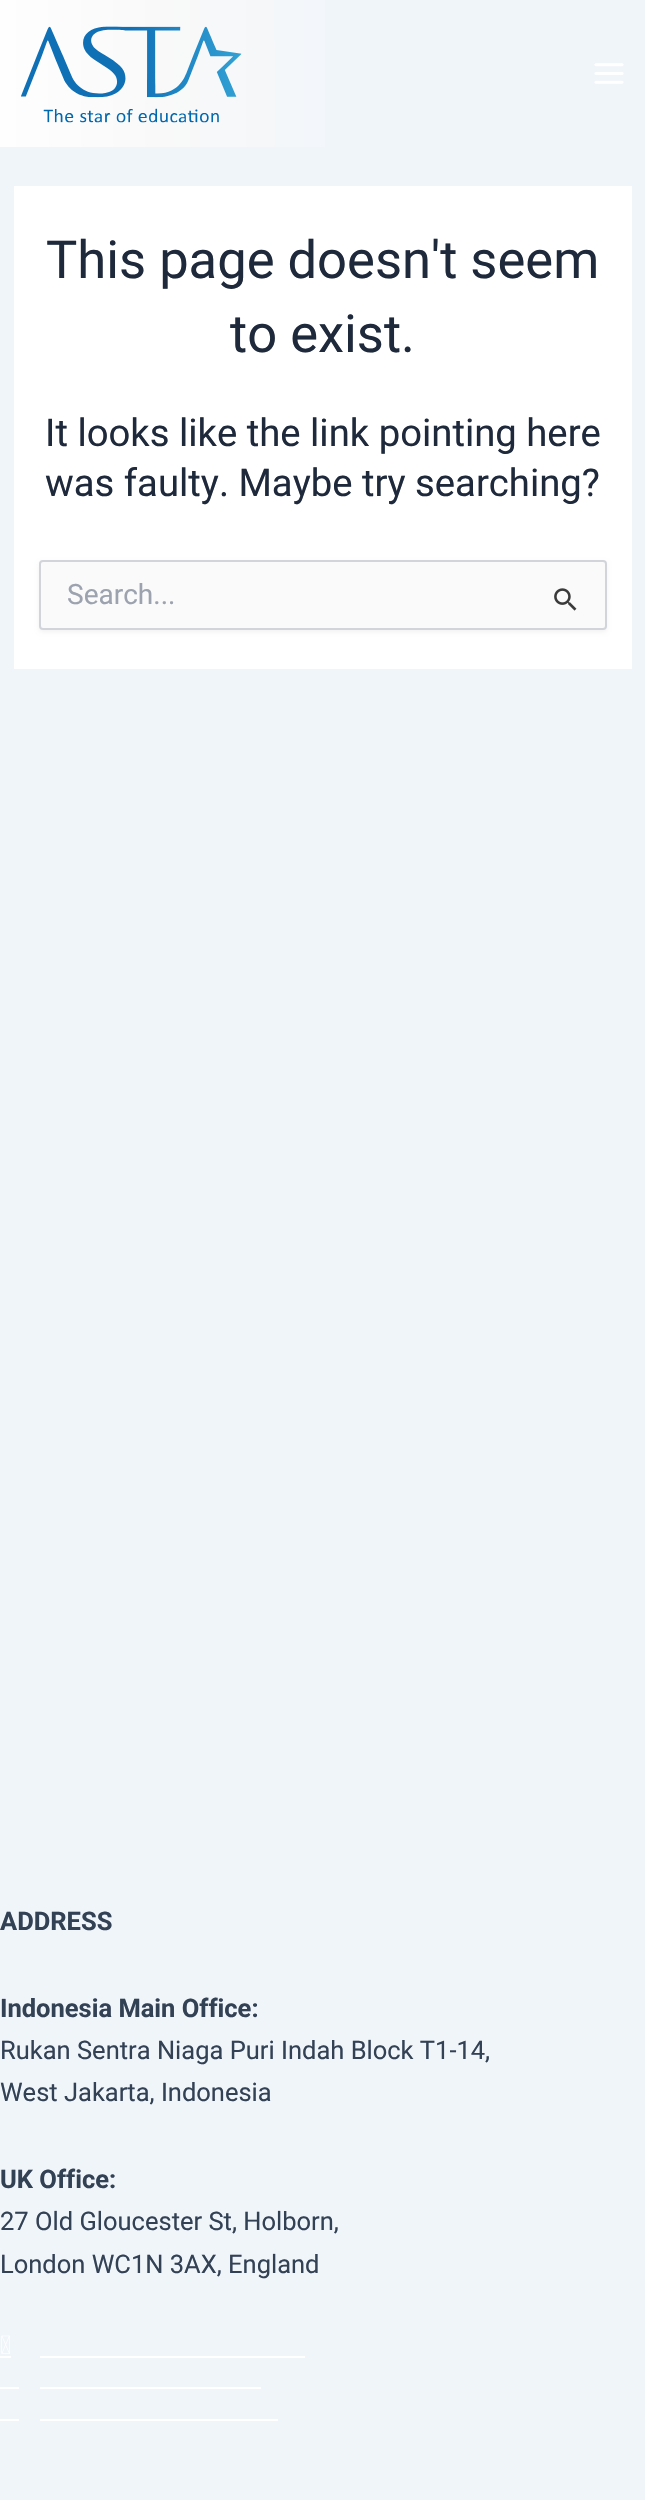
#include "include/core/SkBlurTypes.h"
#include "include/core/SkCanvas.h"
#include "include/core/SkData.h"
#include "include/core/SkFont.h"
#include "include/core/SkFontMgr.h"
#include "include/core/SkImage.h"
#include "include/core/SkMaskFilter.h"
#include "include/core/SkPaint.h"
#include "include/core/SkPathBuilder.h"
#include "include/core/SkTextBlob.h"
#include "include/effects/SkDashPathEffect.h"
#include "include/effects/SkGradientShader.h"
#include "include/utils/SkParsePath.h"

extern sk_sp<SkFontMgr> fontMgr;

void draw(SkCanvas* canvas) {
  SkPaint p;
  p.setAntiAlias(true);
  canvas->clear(SkColorSetRGB(240, 245, 250));
  {
    const SkColor colors[] = {SkColorSetRGB(254, 254, 255), SkColorSetRGB(249, 249, 249), SkColorSetRGB(240, 245, 250)};
    const float stops[] = {0, 0.25f, 0.6f};
    const SkPoint ends[] = {{0, 74}, {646, 73}};
    p.setShader(SkGradientShader::MakeLinear(ends, colors, stops, 3, SkTileMode::kClamp));
    p.setAlpha(255);
  }
  canvas->drawRect(SkRect::MakeLTRB(0, 0, 325, 147), p);
  canvas->drawImageRect(SkImages::DeferredFromEncodedData(SkData::MakeFromFileName("images/1.png")), SkRect::MakeLTRB(21, 26, 242, 123), SkSamplingOptions());
  canvas->drawImageRect(SkImages::DeferredFromEncodedData(SkData::MakeFromFileName("images/2.png")), SkRect::MakeLTRB(594, 63, 624, 84), SkSamplingOptions());
  p.setShader(nullptr);
  p.setColor(SK_ColorWHITE);
  canvas->drawRect(SkRect::MakeLTRB(14, 186, 632, 669), p);
  p.setColor(SkColorSetARGB(13, 0, 0, 0));
  p.setMaskFilter(SkMaskFilter::MakeBlur(kNormal_SkBlurStyle, 2));
  canvas->drawRoundRect(SkRect::MakeLTRB(39, 562, 607, 632), 4, 4, p);
  p.setMaskFilter(nullptr);
  p.setColor(SkColorSetRGB(250, 250, 250));
  canvas->drawRoundRect(SkRect::MakeLTRB(40, 561, 606, 629), 3, 3, p);
  p.setStyle(SkPaint::kStroke_Style);
  p.setStrokeWidth(2);
  p.setColor(SkColorSetRGB(209, 213, 219));
  canvas->drawRoundRect(SkRect::MakeLTRB(40, 561, 606, 629), 3, 3, p);
  canvas->drawImageRect(SkImages::DeferredFromEncodedData(SkData::MakeFromFileName("images/3.png")), SkRect::MakeLTRB(554, 588, 577, 611), SkSamplingOptions());
  canvas->drawImageRect(SkImages::DeferredFromEncodedData(SkData::MakeFromFileName("images/4.png")), SkRect::MakeLTRB(1, 2335, 10, 2354), SkSamplingOptions());
  p.setStyle(SkPaint::kFill_Style);
  p.setColor(SK_ColorWHITE);
  canvas->drawRect(SkRect::MakeLTRB(0, 2356, 11, 2358), p);
  canvas->drawRect(SkRect::MakeLTRB(40, 2356, 305, 2358), p);
  canvas->drawRect(SkRect::MakeLTRB(0, 2387, 19, 2389), p);
  canvas->drawRect(SkRect::MakeLTRB(40, 2387, 261, 2389), p);
  canvas->drawRect(SkRect::MakeLTRB(0, 2419, 19, 2421), p);
  canvas->drawRect(SkRect::MakeLTRB(40, 2419, 278, 2421), p);
  SkFont font1(fontMgr->matchFamilyStyle("Roboto", SkFontStyle::Normal()), 52.5f);
  font1.setSubpixel(true);
  p.setColor(SkColorSetRGB(30, 41, 59));
  canvas->drawString("This page doesn't seem", 46, 278, font1, p);
  canvas->drawString("to exist.", 230, 352, font1, p);
  SkFont font2(fontMgr->matchFamilyStyle("Roboto", SkFontStyle::Normal()), 38.25f);
  font2.setSubpixel(true);
  canvas->drawString("It looks like the link pointing here", 45, 446, font2, p);
  canvas->drawString("was faulty. Maybe try searching?", 45, 496, font2, p);
  SkFont font3(fontMgr->matchFamilyStyle("Roboto", SkFontStyle::Normal()), 28);
  font3.setSubpixel(true);
  p.setColor(SkColorSetRGB(156, 163, 175));
  canvas->drawString("Search...", 67, 604, font3, p);
  SkFont font4(fontMgr->matchFamilyStyle("Roboto", SkFontStyle::Bold()), 25.5f);
  font4.setSubpixel(true);
  p.setColor(SkColorSetRGB(51, 65, 85));
  canvas->drawString("ADDRESS", 0, 1930, font4, p);
  canvas->drawString("Indonesia Main Office:", 0, 2017, font4, p);
  SkFont font5(fontMgr->matchFamilyStyle("Roboto", SkFontStyle::Normal()), 25.5f);
  font5.setSubpixel(true);
  canvas->drawString("Rukan Sentra Niaga Puri Indah Block T1-14,", 0, 2059, font5, p);
  canvas->drawString("West Jakarta, Indonesia", 0, 2101, font5, p);
  canvas->drawString("UK Office:", 0, 2188, font4, p);
  canvas->drawString("27 Old Gloucester St, Holborn,", 0, 2230, font5, p);
  canvas->drawString("London WC1N 3AX, England", 0, 2273, font5, p);
}
